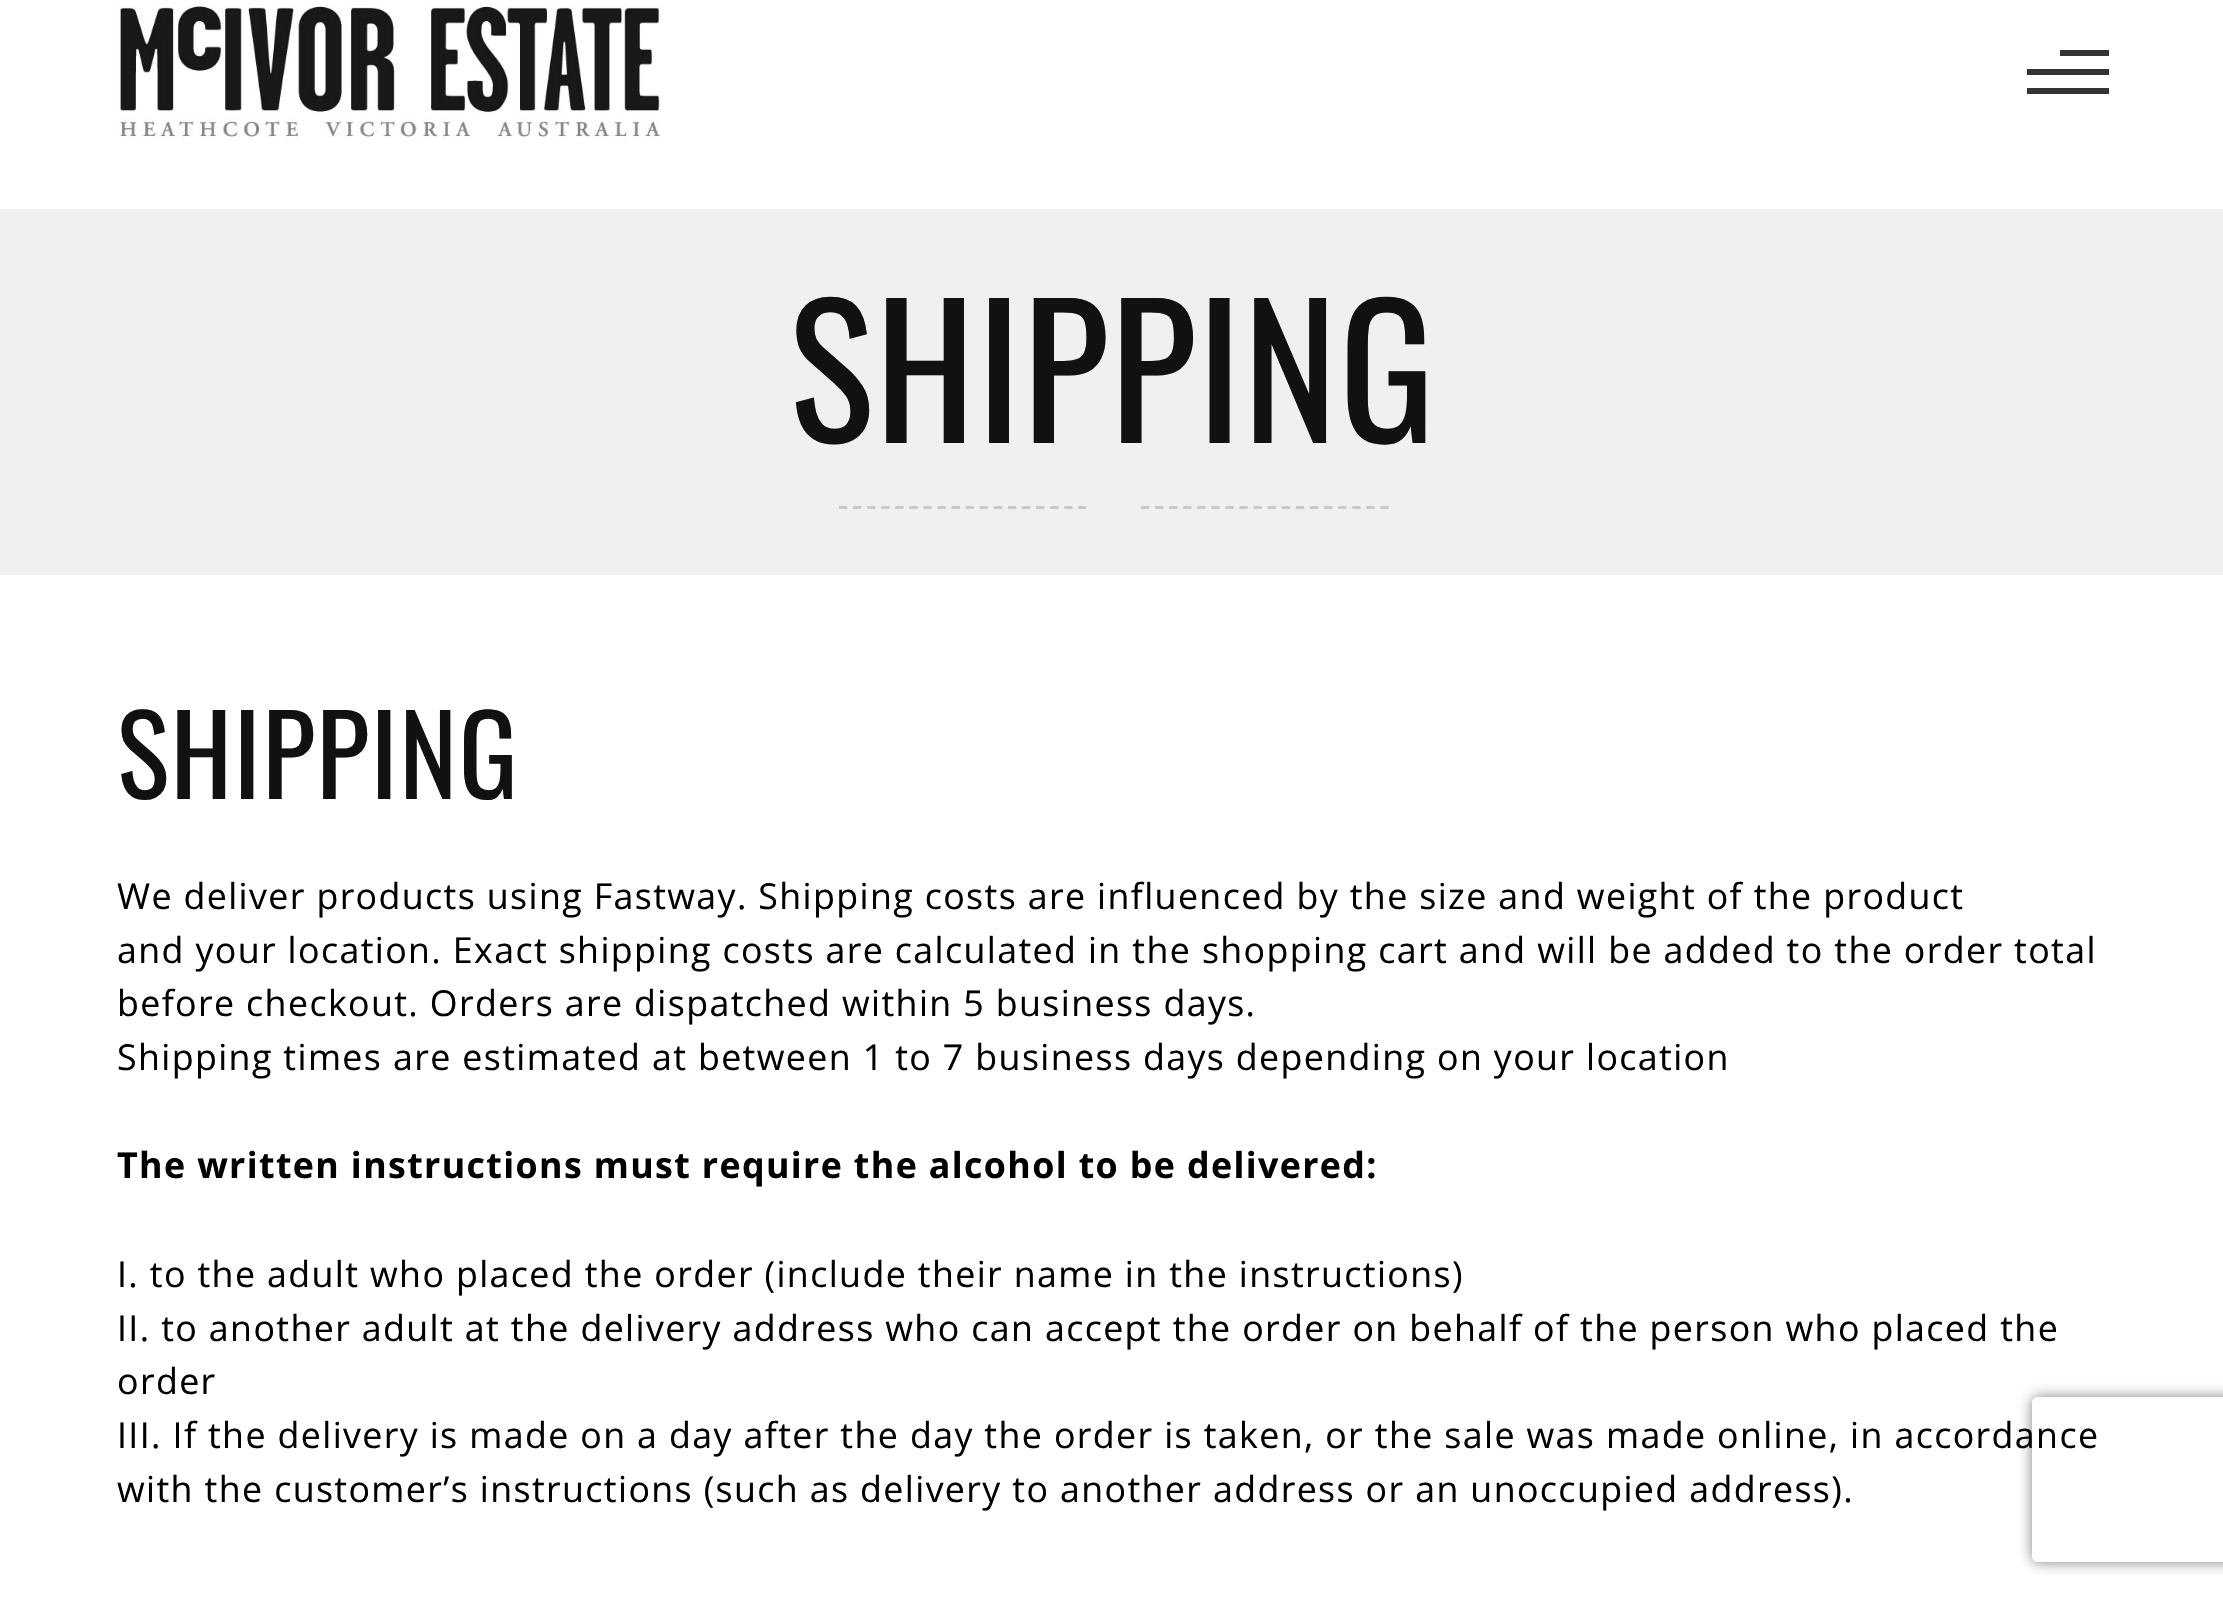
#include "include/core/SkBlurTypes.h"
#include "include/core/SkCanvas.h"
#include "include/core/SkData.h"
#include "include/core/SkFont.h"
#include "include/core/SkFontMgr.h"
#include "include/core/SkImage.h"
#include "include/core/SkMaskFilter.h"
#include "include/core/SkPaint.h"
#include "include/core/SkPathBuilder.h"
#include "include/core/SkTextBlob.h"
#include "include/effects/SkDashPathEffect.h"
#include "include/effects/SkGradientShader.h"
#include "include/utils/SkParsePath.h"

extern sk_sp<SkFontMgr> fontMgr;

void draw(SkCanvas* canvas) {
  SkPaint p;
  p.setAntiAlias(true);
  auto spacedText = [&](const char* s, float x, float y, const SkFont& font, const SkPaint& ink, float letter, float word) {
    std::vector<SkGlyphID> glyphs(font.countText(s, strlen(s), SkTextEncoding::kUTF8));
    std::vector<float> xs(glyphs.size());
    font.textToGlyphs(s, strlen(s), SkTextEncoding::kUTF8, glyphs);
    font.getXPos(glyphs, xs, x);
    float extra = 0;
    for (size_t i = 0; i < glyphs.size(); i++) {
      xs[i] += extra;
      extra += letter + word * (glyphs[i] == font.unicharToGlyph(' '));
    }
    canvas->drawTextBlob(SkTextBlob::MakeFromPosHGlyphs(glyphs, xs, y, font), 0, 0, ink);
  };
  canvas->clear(SK_ColorWHITE);
  canvas->drawImageRect(SkImages::DeferredFromEncodedData(SkData::MakeFromFileName("images/1.png")), SkRect::MakeLTRB(118, 5, 660, 138), SkSamplingOptions());
  p.setColor(SkColorSetRGB(51, 51, 51));
  canvas->drawRect(SkRect::MakeLTRB(2060, 50, 2109, 56), p);
  canvas->drawRect(SkRect::MakeLTRB(2027, 69, 2109, 75), p);
  canvas->drawRect(SkRect::MakeLTRB(2027, 88, 2109, 94), p);
  p.setColor(SkColorSetRGB(240, 240, 240));
  canvas->drawRect(SkRect::MakeLTRB(0, 209, 2223, 575), p);
  p.setStyle(SkPaint::kStroke_Style);
  p.setStrokeWidth(2.8f);
  p.setColor(SkColorSetRGB(201, 201, 201));
  p.setPathEffect(SkDashPathEffect::Make({{8.25f, 5.83f}}, 0));
  canvas->drawPath(SkPathBuilder().moveTo(839, 507.5f).lineTo(1086, 507.5f).detach(), p);
  p.setPathEffect(nullptr);
  p.setPathEffect(SkDashPathEffect::Make({{8.25f, 5.83f}}, 0));
  canvas->drawPath(SkPathBuilder().moveTo(1141, 507.5f).lineTo(1389, 507.5f).detach(), p);
  p.setPathEffect(nullptr);
  canvas->save();
  canvas->clipPath(SkPathBuilder(SkPathFillType::kEvenOdd).moveTo(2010, 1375).lineTo(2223, 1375).lineTo(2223, 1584).lineTo(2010, 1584).close().moveTo(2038, 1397).lineTo(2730, 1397).cubicTo(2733.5f, 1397, 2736, 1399.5f, 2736, 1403).lineTo(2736, 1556).cubicTo(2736, 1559.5f, 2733.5f, 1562, 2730, 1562).lineTo(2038, 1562).cubicTo(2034.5f, 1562, 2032, 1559.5f, 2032, 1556).lineTo(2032, 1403).cubicTo(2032, 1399.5f, 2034.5f, 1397, 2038, 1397).close().detach(), true);
  p.setStyle(SkPaint::kFill_Style);
  p.setColor(SkColorSetRGB(128, 128, 128));
  p.setMaskFilter(SkMaskFilter::MakeBlur(kNormal_SkBlurStyle, 7));
  canvas->drawRoundRect(SkRect::MakeLTRB(2032, 1397, 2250, 1562), 6, 6, p);
  p.setMaskFilter(nullptr);
  canvas->restore();
  SkFont font1(fontMgr->matchFamilyStyle("Oswald", SkFontStyle::Normal()), 179);
  font1.setSubpixel(true);
  p.setColor(SkColorSetRGB(17, 17, 17));
  spacedText("SHIPPING", 789, 443, font1, p, 1.38f, 0);
  SkFont font2(fontMgr->matchFamilyStyle("Oswald", SkFontStyle::Normal()), 110);
  font2.setSubpixel(true);
  spacedText("SHIPPING", 117, 799, font2, p, 1.38f, 0);
  SkFont font3(fontMgr->matchFamilyStyle("Open Sans", SkFontStyle::Normal()), 35.75f);
  font3.setSubpixel(true);
  p.setColor(SK_ColorBLACK);
  spacedText("We deliver products using Fastway. Shipping costs are influenced by the size and weight of the product", 117, 909, font3, p, 1.38f, 0);
  spacedText("and your location. Exact shipping costs are calculated in the shopping cart and will be added to the order total", 117, 963, font3, p, 1.38f, 0);
  spacedText("before checkout. Orders are dispatched within 5 business days.", 117, 1016, font3, p, 1.38f, 0);
  spacedText("Shipping times are estimated at between 1 to 7 business days depending on your location", 117, 1070, font3, p, 1.38f, 0);
  SkFont font4(fontMgr->matchFamilyStyle("Open Sans", SkFontStyle::Bold()), 35.75f);
  font4.setSubpixel(true);
  spacedText("The written instructions must require the alcohol to be delivered:", 117, 1178, font4, p, 1.38f, 0);
  spacedText("I. to the adult who placed the order (include their name in the instructions)", 117, 1287, font3, p, 1.38f, 0);
  spacedText("II. to another adult at the delivery address who can accept the order on behalf of the person who placed the", 117, 1341, font3, p, 1.38f, 0);
  spacedText("order", 117, 1394, font3, p, 1.38f, 0);
  spacedText("III. If the delivery is made on a day after the day the order is taken, or the sale was made online, in accordance", 117, 1448, font3, p, 1.38f, 0);
  spacedText("with the customer’s instructions (such as delivery to another address or an unoccupied address).", 117, 1502, font3, p, 1.38f, 0);
}
